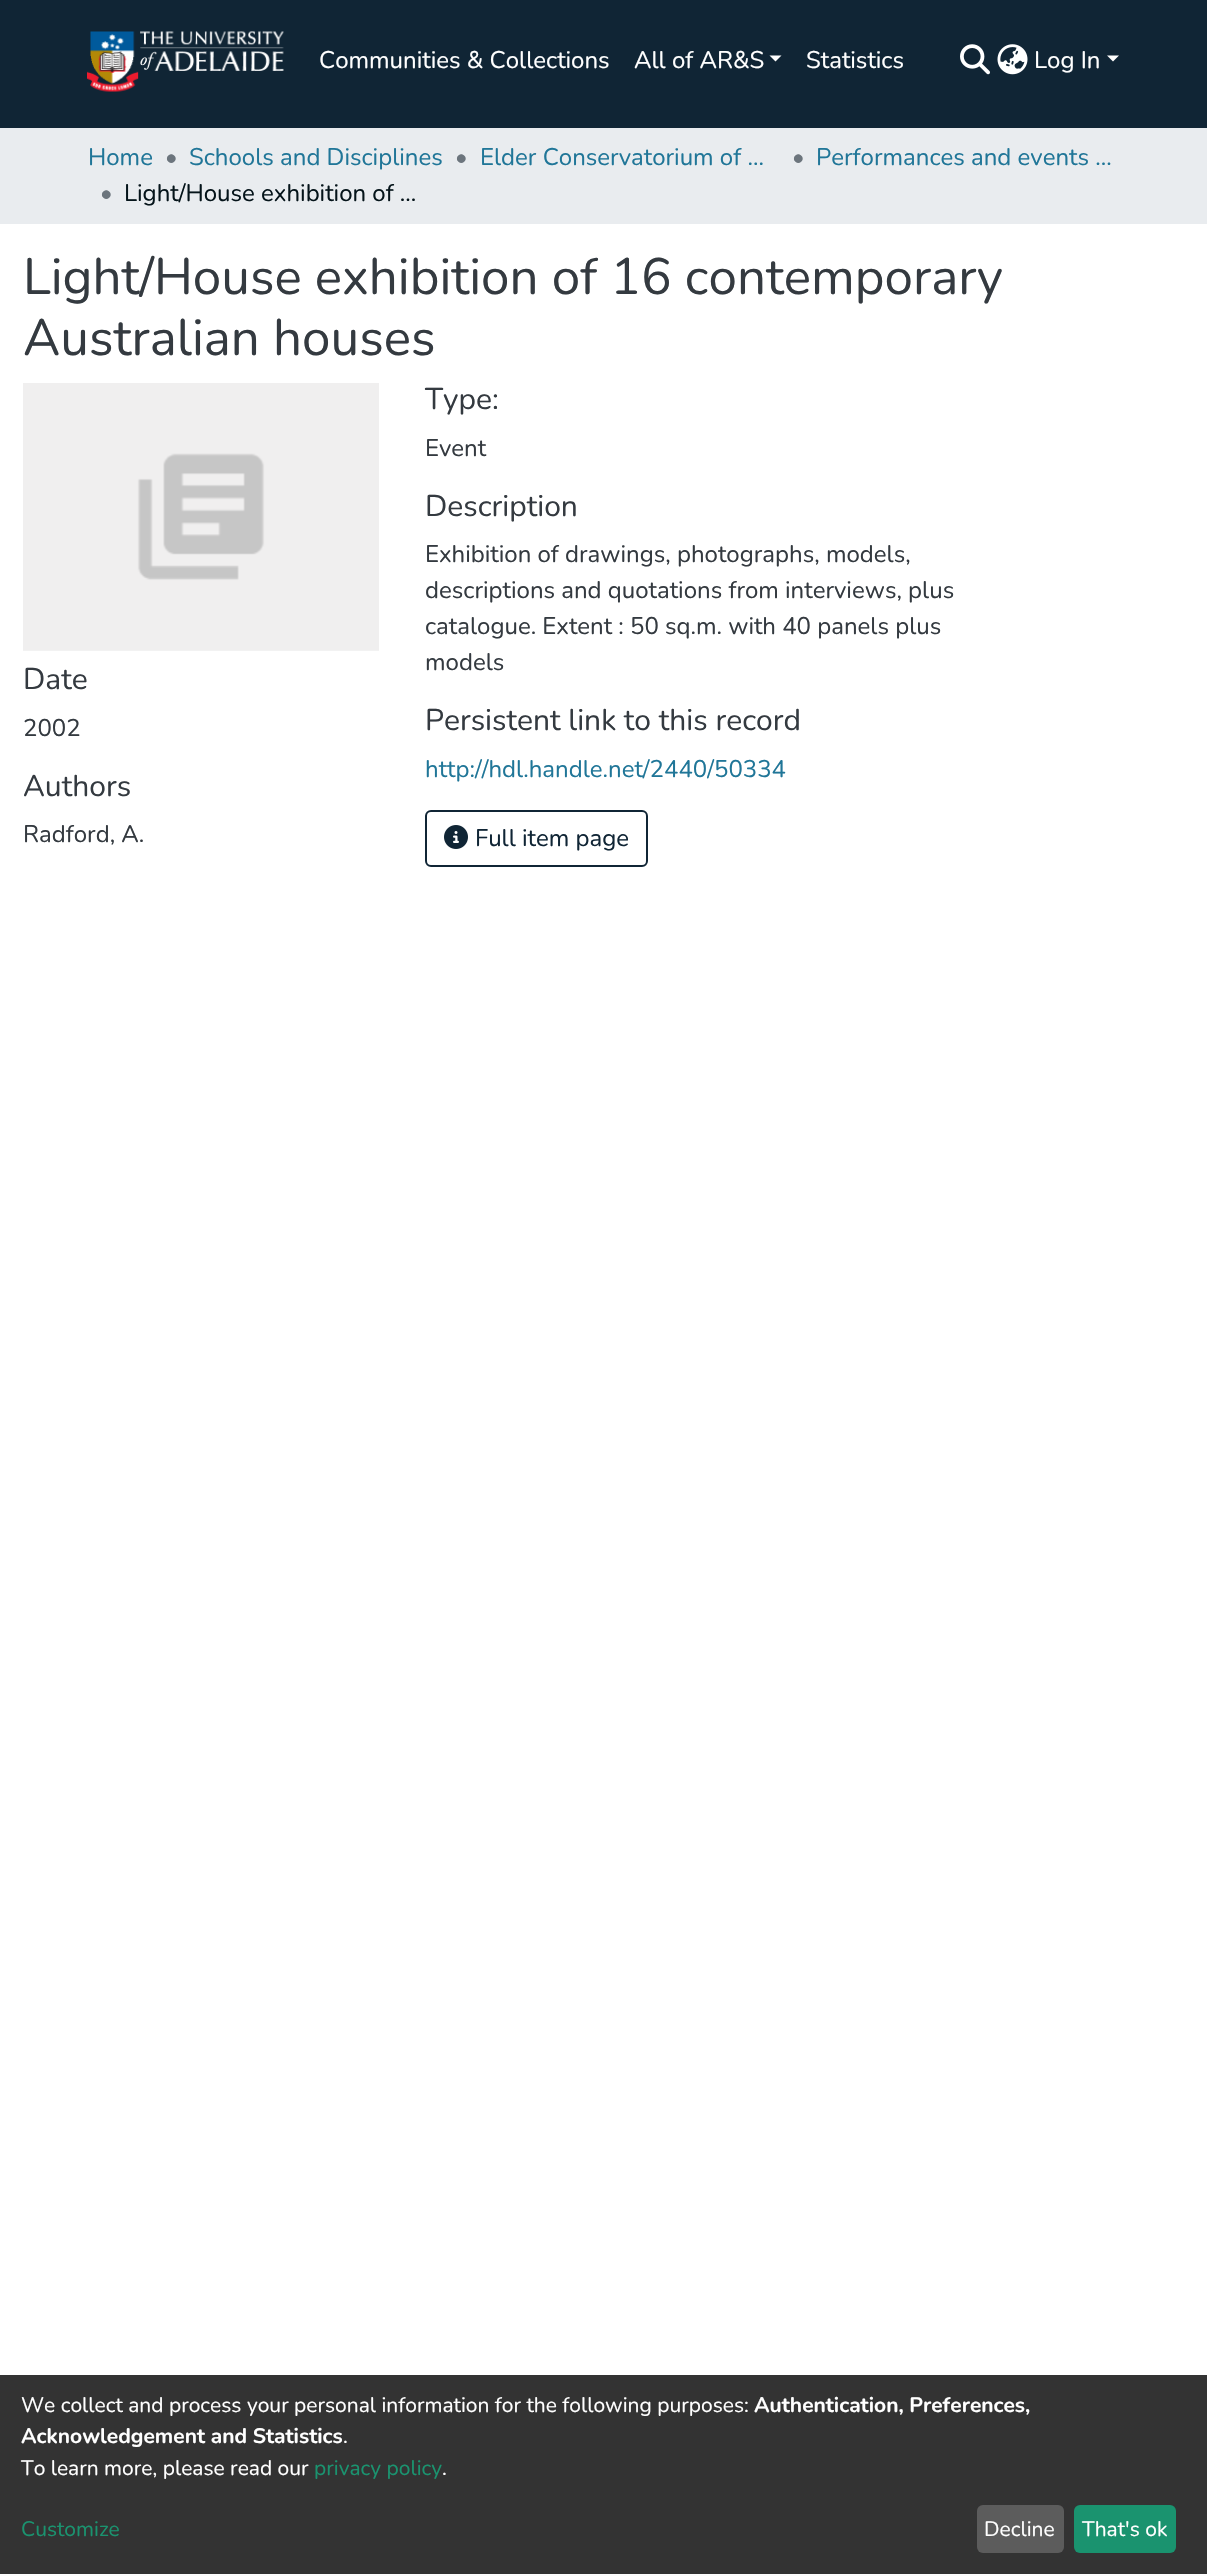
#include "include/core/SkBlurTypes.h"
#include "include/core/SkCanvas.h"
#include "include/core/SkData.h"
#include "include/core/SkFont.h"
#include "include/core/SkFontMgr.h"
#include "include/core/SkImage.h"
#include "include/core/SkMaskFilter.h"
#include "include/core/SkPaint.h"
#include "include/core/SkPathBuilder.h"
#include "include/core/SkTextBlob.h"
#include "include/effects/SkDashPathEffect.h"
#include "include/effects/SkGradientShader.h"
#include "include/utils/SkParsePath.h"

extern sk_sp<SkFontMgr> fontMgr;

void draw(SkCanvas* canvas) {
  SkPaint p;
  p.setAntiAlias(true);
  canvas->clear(SK_ColorWHITE);
  p.setColor(SkColorSetRGB(16, 37, 53));
  canvas->drawRect(SkRect::MakeLTRB(0, 0, 1207, 128), p);
  canvas->drawImageRect(SkImages::DeferredFromEncodedData(SkData::MakeFromFileName("images/1.png")), SkRect::MakeLTRB(87, 31, 284, 92), SkSamplingOptions());
  p.setColor(SK_ColorWHITE);
  canvas->drawPath(SkPathBuilder().moveTo(769.5f, 55.5f).lineTo(781.5f, 55.5f).lineTo(775.5f, 61.5f).close().detach(), p);
  canvas->drawImageRect(SkImages::DeferredFromEncodedData(SkData::MakeFromFileName("images/2.png")), SkRect::MakeLTRB(960, 44, 990, 75), SkSamplingOptions());
  canvas->drawImageRect(SkImages::DeferredFromEncodedData(SkData::MakeFromFileName("images/3.png")), SkRect::MakeLTRB(997, 44, 1028, 75), SkSamplingOptions());
  canvas->drawPath(SkPathBuilder().moveTo(1107, 55.5f).lineTo(1119, 55.5f).lineTo(1113, 61.5f).close().detach(), p);
  p.setColor(SkColorSetRGB(233, 236, 239));
  canvas->drawRect(SkRect::MakeLTRB(0, 128, 1207, 224), p);
  canvas->drawImageRect(SkImages::DeferredFromEncodedData(SkData::MakeFromFileName("images/4.png")), SkRect::MakeLTRB(23, 383, 379, 651), SkSamplingOptions());
  p.setStyle(SkPaint::kStroke_Style);
  p.setStrokeWidth(2);
  p.setColor(SkColorSetRGB(16, 37, 53));
  canvas->drawRoundRect(SkRect::MakeLTRB(426, 811, 647, 866), 5, 5, p);
  canvas->drawImageRect(SkImages::DeferredFromEncodedData(SkData::MakeFromFileName("images/5.png")), SkRect::MakeLTRB(444, 825, 468, 849), SkSamplingOptions());
  p.setStyle(SkPaint::kFill_Style);
  p.setColor(SkColorSetRGB(51, 51, 51));
  canvas->drawRect(SkRect::MakeLTRB(0, 2375, 1207, 2574), p);
  p.setColor(SkColorSetRGB(92, 92, 92));
  canvas->drawRoundRect(SkRect::MakeLTRB(977, 2505, 1064, 2553), 6, 6, p);
  p.setColor(SkColorSetRGB(26, 147, 111));
  canvas->drawRoundRect(SkRect::MakeLTRB(1074, 2505, 1176, 2553), 6, 6, p);
  SkFont font1(fontMgr->matchFamilyStyle("Nunito", SkFontStyle::Normal()), 24);
  font1.setSubpixel(true);
  p.setColor(SK_ColorWHITE);
  canvas->drawString("Communities & Collections", 319, 68, font1, p);
  canvas->drawString("All of AR&S", 634, 68, font1, p);
  canvas->drawString("Statistics", 806, 68, font1, p);
  canvas->drawString("Log In", 1034, 68, font1, p);
  p.setColor(SkColorSetRGB(32, 118, 152));
  canvas->drawString("Home", 88, 165, font1, p);
  p.setColor(SkColorSetRGB(108, 117, 125));
  canvas->drawString("•", 165, 165, font1, p);
  p.setColor(SkColorSetRGB(32, 118, 152));
  canvas->drawString("Schools and Disciplines", 189, 165, font1, p);
  p.setColor(SkColorSetRGB(108, 117, 125));
  canvas->drawString("•", 455, 165, font1, p);
  p.setColor(SkColorSetRGB(32, 118, 152));
  canvas->drawString("Elder Conservatorium of …", 480, 165, font1, p);
  p.setColor(SkColorSetRGB(108, 117, 125));
  canvas->drawString("•", 792, 165, font1, p);
  p.setColor(SkColorSetRGB(32, 118, 152));
  canvas->drawString("Performances and events …", 816, 165, font1, p);
  p.setColor(SkColorSetRGB(108, 117, 125));
  canvas->drawString("•", 100, 201, font1, p);
  p.setColor(SkColorSetRGB(5, 20, 26));
  canvas->drawString("Light/House exhibition of …", 124, 201, font1, p);
  SkFont font2(fontMgr->matchFamilyStyle("Nunito", SkFontStyle::Normal()), 51.1f);
  font2.setSubpixel(true);
  p.setColor(SkColorSetRGB(52, 58, 64));
  canvas->drawString("Light/House exhibition of 16 contemporary", 23, 294, font2, p);
  canvas->drawString("Australian houses", 23, 355, font2, p);
  SkFont font3(fontMgr->matchFamilyStyle("Nunito", SkFontStyle::Normal()), 30);
  font3.setSubpixel(true);
  canvas->drawString("Date", 23, 689, font3, p);
  canvas->drawString("2002", 23, 736, font1, p);
  canvas->drawString("Authors", 23, 796, font3, p);
  canvas->drawString("Radford, A.", 23, 842, font1, p);
  canvas->drawString("Type:", 425, 409, font3, p);
  canvas->drawString("Event", 425, 456, font1, p);
  canvas->drawString("Description", 425, 516, font3, p);
  canvas->drawString("Exhibition of drawings, photographs, models,", 425, 562, font1, p);
  canvas->drawString("descriptions and quotations from interviews, plus", 425, 598, font1, p);
  canvas->drawString("catalogue. Extent : 50 sq.m. with 40 panels plus", 425, 634, font1, p);
  canvas->drawString("models", 425, 670, font1, p);
  canvas->drawString("Persistent link to this record", 425, 730, font3, p);
  p.setColor(SkColorSetRGB(32, 118, 152));
  canvas->drawString("http://hdl.handle.net/2440/50334", 425, 777, font1, p);
  p.setColor(SkColorSetRGB(16, 37, 53));
  canvas->drawString("Full item page", 475, 846, font1, p);
  SkFont font4(fontMgr->matchFamilyStyle("Nunito", SkFontStyle::Normal()), 21);
  font4.setSubpixel(true);
  p.setColor(SK_ColorWHITE);
  canvas->drawString("We collect and process your personal information for the following purposes:", 21, 2412, font4, p);
  SkFont font5(fontMgr->matchFamilyStyle("Nunito", SkFontStyle::Bold()), 21);
  font5.setSubpixel(true);
  canvas->drawString("Authentication, Preferences,", 754, 2412, font5, p);
  canvas->drawString("Acknowledgement and Statistics", 21, 2443, font5, p);
  canvas->drawString(".", 343, 2443, font4, p);
  canvas->drawString("To learn more, please read our", 21, 2475, font4, p);
  p.setColor(SkColorSetRGB(26, 147, 111));
  canvas->drawString("privacy policy", 314, 2475, font4, p);
  p.setColor(SK_ColorWHITE);
  canvas->drawString(".", 442, 2475, font4, p);
  p.setColor(SkColorSetRGB(26, 147, 111));
  canvas->drawString("Customize", 21, 2536, font4, p);
  p.setColor(SK_ColorWHITE);
  canvas->drawString("Decline", 984, 2536, font4, p);
  canvas->drawString("That's ok", 1082, 2536, font4, p);
}
